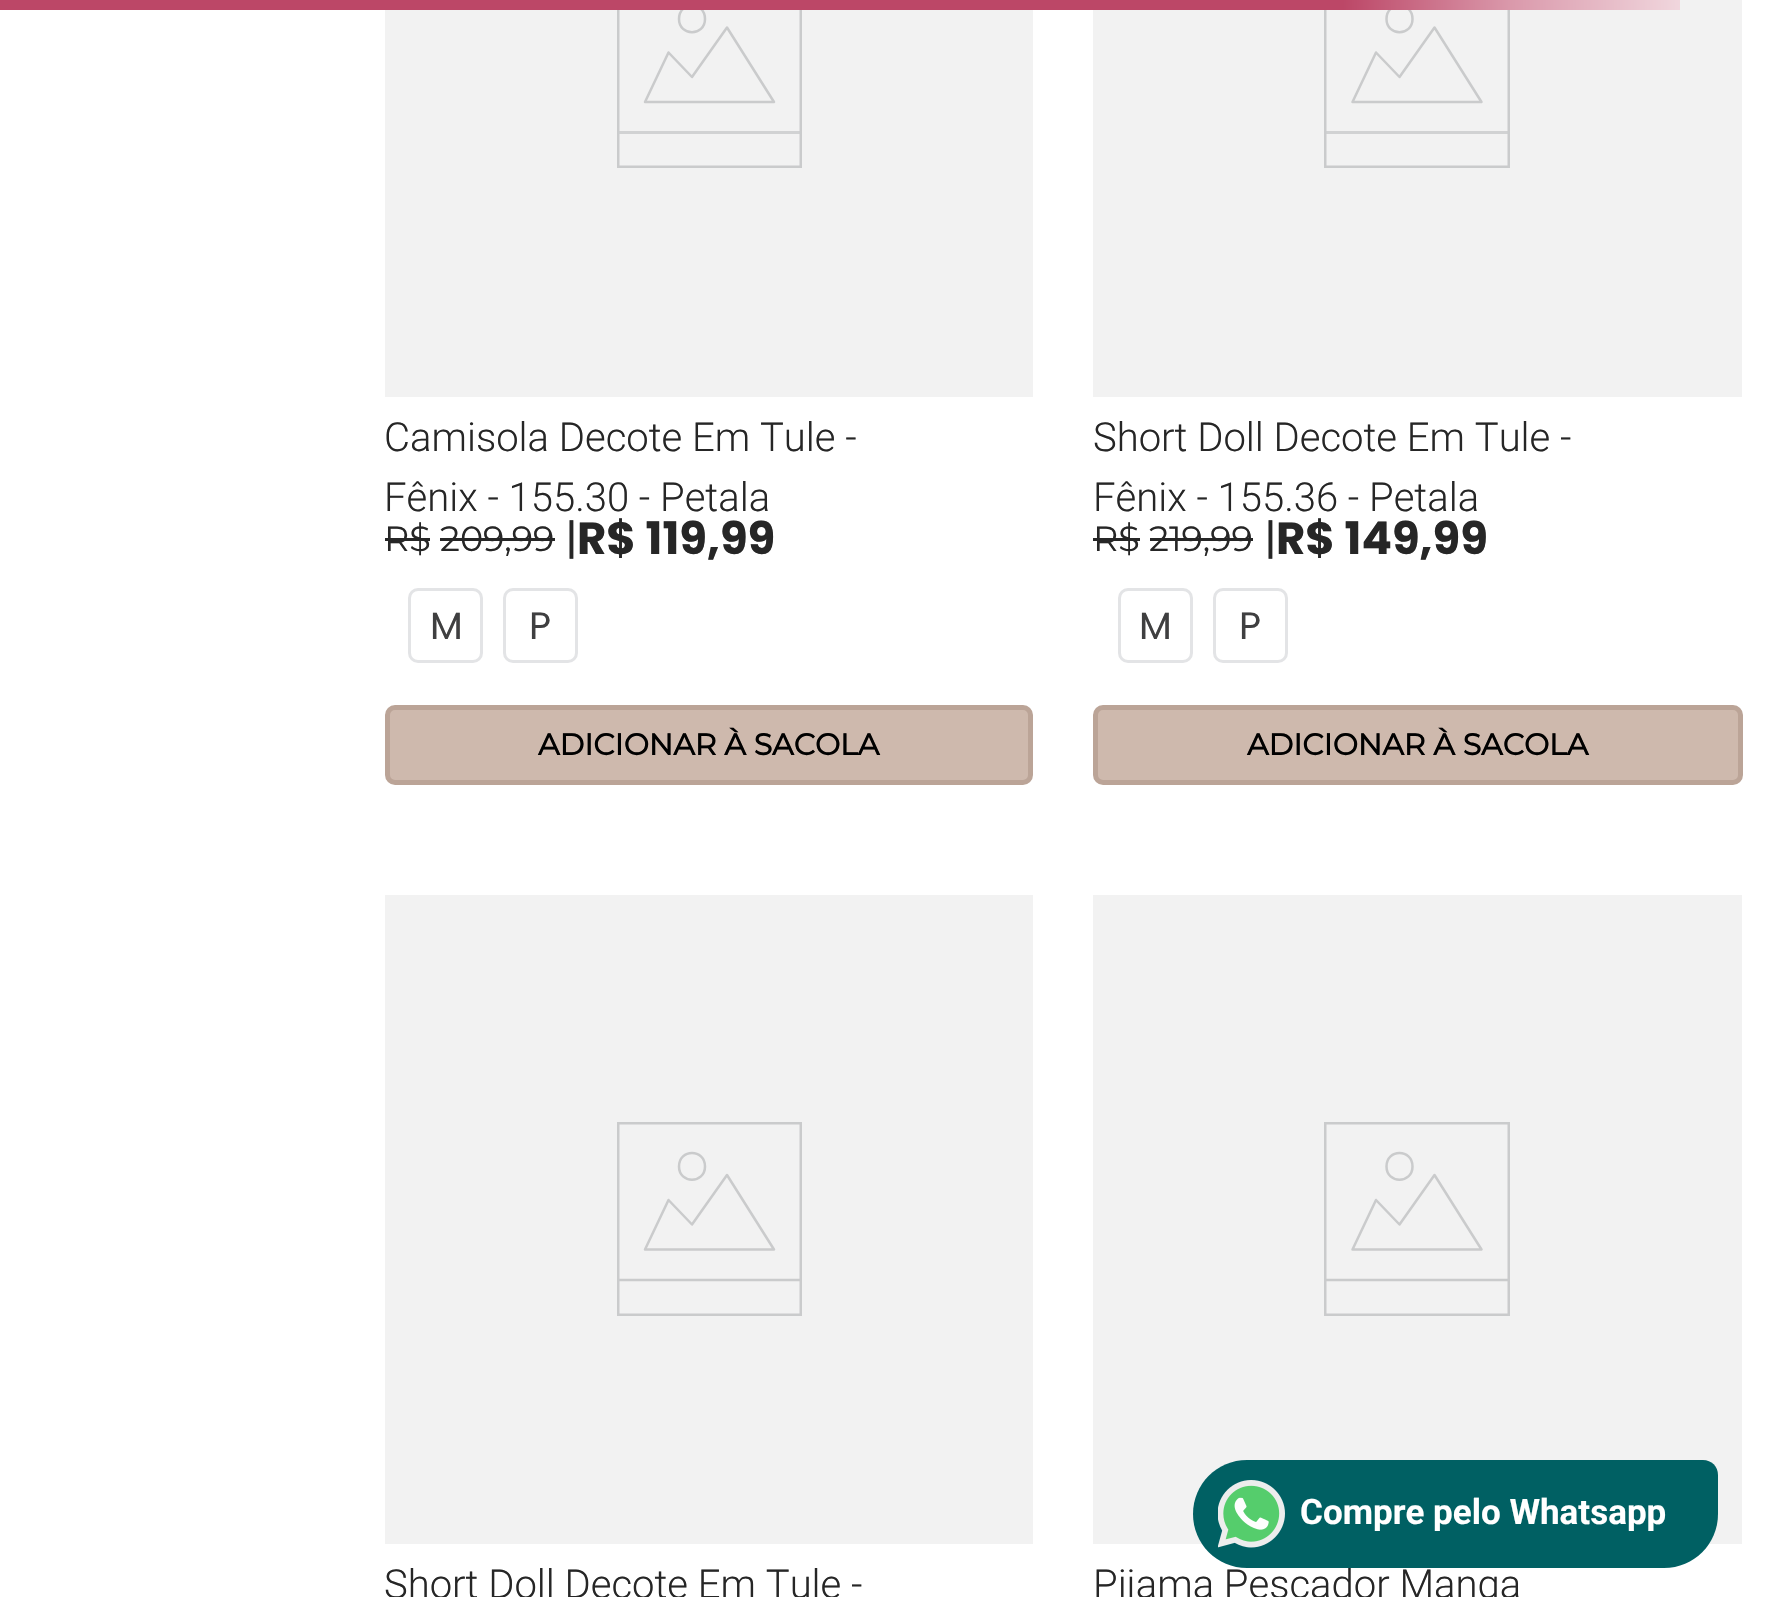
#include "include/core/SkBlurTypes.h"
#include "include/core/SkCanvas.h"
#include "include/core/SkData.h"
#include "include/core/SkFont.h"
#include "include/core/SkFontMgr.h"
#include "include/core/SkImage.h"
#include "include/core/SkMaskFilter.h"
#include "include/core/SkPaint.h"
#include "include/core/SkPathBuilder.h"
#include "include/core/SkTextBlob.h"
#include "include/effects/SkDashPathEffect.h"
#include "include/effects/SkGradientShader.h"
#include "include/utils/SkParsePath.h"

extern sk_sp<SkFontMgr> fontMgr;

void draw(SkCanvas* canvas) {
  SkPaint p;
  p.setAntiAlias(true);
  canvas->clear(SK_ColorWHITE);
  p.setColor(SkColorSetRGB(242, 242, 242));
  canvas->drawRect(SkRect::MakeLTRB(385, 10, 1033, 397), p);
  p.setStyle(SkPaint::kStroke_Style);
  p.setStrokeWidth(2.5f);
  p.setColor(SkColorSetRGB(202, 203, 204));
  canvas->drawRect(SkRect::MakeLTRB(618.25f, -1.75f, 800.75f, 166.75f), p);
  p.setStrokeCap(SkPaint::kRound_Cap);
  p.setStrokeJoin(SkPaint::kRound_Join);
  canvas->drawPath(SkPathBuilder().moveTo(645, 102).lineTo(668.5f, 52.5f).lineTo(692, 77).lineTo(727, 27.5f).lineTo(774, 102).close().detach(), p);
  p.setStrokeCap(SkPaint::kButt_Cap);
  p.setStrokeJoin(SkPaint::kMiter_Join);
  canvas->drawPath(SkPathBuilder().moveTo(705, 19).cubicTo(705, 36.5f, 679, 36.5f, 679, 19).cubicTo(679, 1, 705, 1, 705, 19).close().detach(), p);
  p.setStyle(SkPaint::kFill_Style);
  p.setColor(SkColorSetRGB(242, 242, 242));
  canvas->drawRect(SkRect::MakeLTRB(1093, 0, 1742, 397), p);
  p.setStyle(SkPaint::kStroke_Style);
  p.setColor(SkColorSetRGB(202, 203, 204));
  canvas->drawRect(SkRect::MakeLTRB(1325.25f, -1.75f, 1508.75f, 166.75f), p);
  p.setStrokeCap(SkPaint::kRound_Cap);
  p.setStrokeJoin(SkPaint::kRound_Join);
  canvas->drawPath(SkPathBuilder().moveTo(1352.5f, 102).lineTo(1376, 52.5f).lineTo(1399.5f, 77).lineTo(1434.5f, 27.5f).lineTo(1481.5f, 102).close().detach(), p);
  p.setStrokeCap(SkPaint::kButt_Cap);
  p.setStrokeJoin(SkPaint::kMiter_Join);
  canvas->drawPath(SkPathBuilder().moveTo(1412.5f, 19).cubicTo(1412.5f, 36.5f, 1386.5f, 36.5f, 1386.5f, 19).cubicTo(1386.5f, 1, 1412.5f, 1, 1412.5f, 19).close().detach(), p);
  p.setStyle(SkPaint::kFill_Style);
  {
    const SkColor colors[] = {SkColorSetRGB(188, 71, 103), SkColorSetRGB(218, 153, 171), SkColorSetRGB(240, 214, 221)};
    const float stops[] = {0.8f, 0.9f, 1};
    const SkPoint ends[] = {{0, 5}, {1679, 5}};
    p.setShader(SkGradientShader::MakeLinear(ends, colors, stops, 3, SkTileMode::kClamp));
    p.setAlpha(255);
  }
  canvas->drawRect(SkRect::MakeLTRB(0, 0, 1680, 10), p);
  p.setShader(nullptr);
  p.setColor(SkColorSetARGB(212, 202, 203, 204));
  canvas->drawRect(SkRect::MakeLTRB(618, 131, 801, 134), p);
  p.setColor(SkColorSetRGB(38, 38, 38));
  canvas->drawRect(SkRect::MakeLTRB(385, 538, 430, 541), p);
  canvas->drawRect(SkRect::MakeLTRB(440, 538, 555, 541), p);
  p.setStyle(SkPaint::kStroke_Style);
  p.setStrokeWidth(3);
  p.setColor(SkColorSetRGB(227, 228, 230));
  canvas->drawRoundRect(SkRect::MakeLTRB(409.5f, 589.5f, 481.5f, 661.5f), 8.5f, 8.5f, p);
  canvas->drawRoundRect(SkRect::MakeLTRB(504.5f, 589.5f, 576.5f, 661.5f), 8.5f, 8.5f, p);
  p.setStyle(SkPaint::kFill_Style);
  p.setColor(SkColorSetRGB(206, 185, 173));
  canvas->drawRoundRect(SkRect::MakeLTRB(387.5f, 707.5f, 1030.5f, 782.5f), 7.5f, 7.5f, p);
  p.setStyle(SkPaint::kStroke_Style);
  p.setStrokeWidth(5);
  p.setColor(SkColorSetRGB(187, 164, 151));
  canvas->drawRoundRect(SkRect::MakeLTRB(387.5f, 707.5f, 1030.5f, 782.5f), 7.5f, 7.5f, p);
  p.setStyle(SkPaint::kFill_Style);
  p.setColor(SkColorSetARGB(212, 202, 203, 204));
  canvas->drawRect(SkRect::MakeLTRB(1326, 131, 1509, 134), p);
  p.setColor(SkColorSetRGB(38, 38, 38));
  canvas->drawRect(SkRect::MakeLTRB(1093, 538, 1140, 541), p);
  canvas->drawRect(SkRect::MakeLTRB(1150, 538, 1253, 541), p);
  p.setStyle(SkPaint::kStroke_Style);
  p.setStrokeWidth(3);
  p.setColor(SkColorSetRGB(227, 228, 230));
  canvas->drawRoundRect(SkRect::MakeLTRB(1119.5f, 589.5f, 1191.5f, 661.5f), 8.5f, 8.5f, p);
  canvas->drawRoundRect(SkRect::MakeLTRB(1214.5f, 589.5f, 1286.5f, 661.5f), 8.5f, 8.5f, p);
  p.setStyle(SkPaint::kFill_Style);
  p.setColor(SkColorSetRGB(206, 185, 173));
  canvas->drawRoundRect(SkRect::MakeLTRB(1095.5f, 707.5f, 1740.5f, 782.5f), 7.5f, 7.5f, p);
  p.setStyle(SkPaint::kStroke_Style);
  p.setStrokeWidth(5);
  p.setColor(SkColorSetRGB(187, 164, 151));
  canvas->drawRoundRect(SkRect::MakeLTRB(1095.5f, 707.5f, 1740.5f, 782.5f), 7.5f, 7.5f, p);
  p.setStyle(SkPaint::kFill_Style);
  p.setColor(SkColorSetRGB(242, 242, 242));
  canvas->drawRect(SkRect::MakeLTRB(385, 895, 1033, 1544), p);
  p.setStyle(SkPaint::kStroke_Style);
  p.setStrokeWidth(2.5f);
  p.setColor(SkColorSetRGB(202, 203, 204));
  canvas->drawRect(SkRect::MakeLTRB(618.25f, 1123.25f, 800.75f, 1314.75f), p);
  p.setStrokeCap(SkPaint::kRound_Cap);
  p.setStrokeJoin(SkPaint::kRound_Join);
  canvas->drawPath(SkPathBuilder().moveTo(645, 1249.5f).lineTo(668.5f, 1200).lineTo(692, 1224.5f).lineTo(727, 1175).lineTo(774, 1249.5f).close().detach(), p);
  p.setStrokeCap(SkPaint::kButt_Cap);
  p.setStrokeJoin(SkPaint::kMiter_Join);
  canvas->drawPath(SkPathBuilder().moveTo(705, 1166.5f).cubicTo(705, 1184, 679, 1184, 679, 1166.5f).cubicTo(679, 1148.5f, 705, 1148.5f, 705, 1166.5f).close().detach(), p);
  canvas->drawPath(SkPathBuilder().moveTo(618, 1280).lineTo(801, 1280).detach(), p);
  p.setStyle(SkPaint::kFill_Style);
  p.setColor(SkColorSetRGB(242, 242, 242));
  canvas->drawRect(SkRect::MakeLTRB(1093, 895, 1742, 1544), p);
  p.setStyle(SkPaint::kStroke_Style);
  p.setColor(SkColorSetRGB(202, 203, 204));
  canvas->drawRect(SkRect::MakeLTRB(1325.25f, 1123.25f, 1508.75f, 1314.75f), p);
  p.setStrokeCap(SkPaint::kRound_Cap);
  p.setStrokeJoin(SkPaint::kRound_Join);
  canvas->drawPath(SkPathBuilder().moveTo(1352.5f, 1249.5f).lineTo(1376, 1200).lineTo(1399.5f, 1224.5f).lineTo(1434.5f, 1175).lineTo(1481.5f, 1249.5f).close().detach(), p);
  p.setStrokeCap(SkPaint::kButt_Cap);
  p.setStrokeJoin(SkPaint::kMiter_Join);
  canvas->drawPath(SkPathBuilder().moveTo(1412.5f, 1166.5f).cubicTo(1412.5f, 1184, 1386.5f, 1184, 1386.5f, 1166.5f).cubicTo(1386.5f, 1148.5f, 1412.5f, 1148.5f, 1412.5f, 1166.5f).close().detach(), p);
  canvas->drawPath(SkPathBuilder().moveTo(1325.5f, 1280).lineTo(1508.5f, 1280).detach(), p);
  p.setStyle(SkPaint::kFill_Style);
  p.setColor(SkColorSetRGB(0, 96, 99));
  canvas->drawPath(SkPathBuilder().moveTo(1247, 1460).lineTo(1703, 1460).cubicTo(1711.5f, 1460, 1718, 1466.5f, 1718, 1475).lineTo(1718, 1514).cubicTo(1718, 1544, 1694, 1568, 1664, 1568).lineTo(1247, 1568).cubicTo(1217, 1568, 1193, 1544, 1193, 1514).cubicTo(1193, 1484, 1217, 1460, 1247, 1460).close().detach(), p);
  canvas->drawImageRect(SkImages::DeferredFromEncodedData(SkData::MakeFromFileName("images/1.png")), SkRect::MakeLTRB(1218, 1480, 1285, 1548), SkSamplingOptions());
  SkFont font1(fontMgr->matchFamilyStyle("Roboto", SkFontStyle(300, SkFontStyle::kNormal_Width, SkFontStyle::kUpright_Slant)), 40);
  font1.setSubpixel(true);
  p.setColor(SkColorSetRGB(38, 38, 38));
  canvas->drawString("Camisola Decote Em Tule -", 384, 451, font1, p);
  canvas->drawString("Fênix - 155.30 - Petala", 384, 511, font1, p);
  SkFont font2(fontMgr->matchFamilyStyle("Montserrat", SkFontStyle(100, SkFontStyle::kNormal_Width, SkFontStyle::kUpright_Slant)), 35);
  font2.setSubpixel(true);
  canvas->drawString("R$ 209,99", 384, 551, font2, p);
  SkFont font3(fontMgr->matchFamilyStyle("Montserrat", SkFontStyle::Bold()), 40);
  font3.setSubpixel(true);
  canvas->drawString("|", 565, 551, font3, p);
  SkFont font4(fontMgr->matchFamilyStyle("Poppins", SkFontStyle::Bold()), 45);
  font4.setSubpixel(true);
  canvas->drawString("R$ 119,99", 577, 554, font4, p);
  SkFont font5(fontMgr->matchFamilyStyle("Poppins", SkFontStyle::Normal()), 38);
  font5.setSubpixel(true);
  p.setColor(SkColorSetRGB(63, 63, 64));
  canvas->drawString("M", 430, 639, font5, p);
  canvas->drawString("P", 529, 639, font5, p);
  SkFont font6(fontMgr->matchFamilyStyle("Montserrat", SkFontStyle::Bold()), 30);
  font6.setSubpixel(true);
  p.setColor(SK_ColorBLACK);
  canvas->drawString("ADICIONAR À SACOLA", 538, 755, font6, p);
  p.setColor(SkColorSetRGB(38, 38, 38));
  canvas->drawString("Short Doll Decote Em Tule -", 1093, 451, font1, p);
  canvas->drawString("Fênix - 155.36 - Petala", 1093, 511, font1, p);
  canvas->drawString("R$ 219,99", 1093, 551, font2, p);
  canvas->drawString("|", 1264, 551, font3, p);
  canvas->drawString("R$ 149,99", 1276, 554, font4, p);
  p.setColor(SkColorSetRGB(63, 63, 64));
  canvas->drawString("M", 1139, 639, font5, p);
  canvas->drawString("P", 1239, 639, font5, p);
  p.setColor(SK_ColorBLACK);
  canvas->drawString("ADICIONAR À SACOLA", 1247, 755, font6, p);
  p.setColor(SkColorSetRGB(38, 38, 38));
  canvas->drawString("Short Doll Decote Em Tule -", 384, 1598, font1, p);
  canvas->drawString("Pijama Pescador Manga", 1093, 1598, font1, p);
  SkFont font7(fontMgr->matchFamilyStyle("Roboto", SkFontStyle::Bold()), 35);
  font7.setSubpixel(true);
  p.setColor(SK_ColorWHITE);
  canvas->drawString("Compre pelo Whatsapp", 1300, 1524, font7, p);
}
